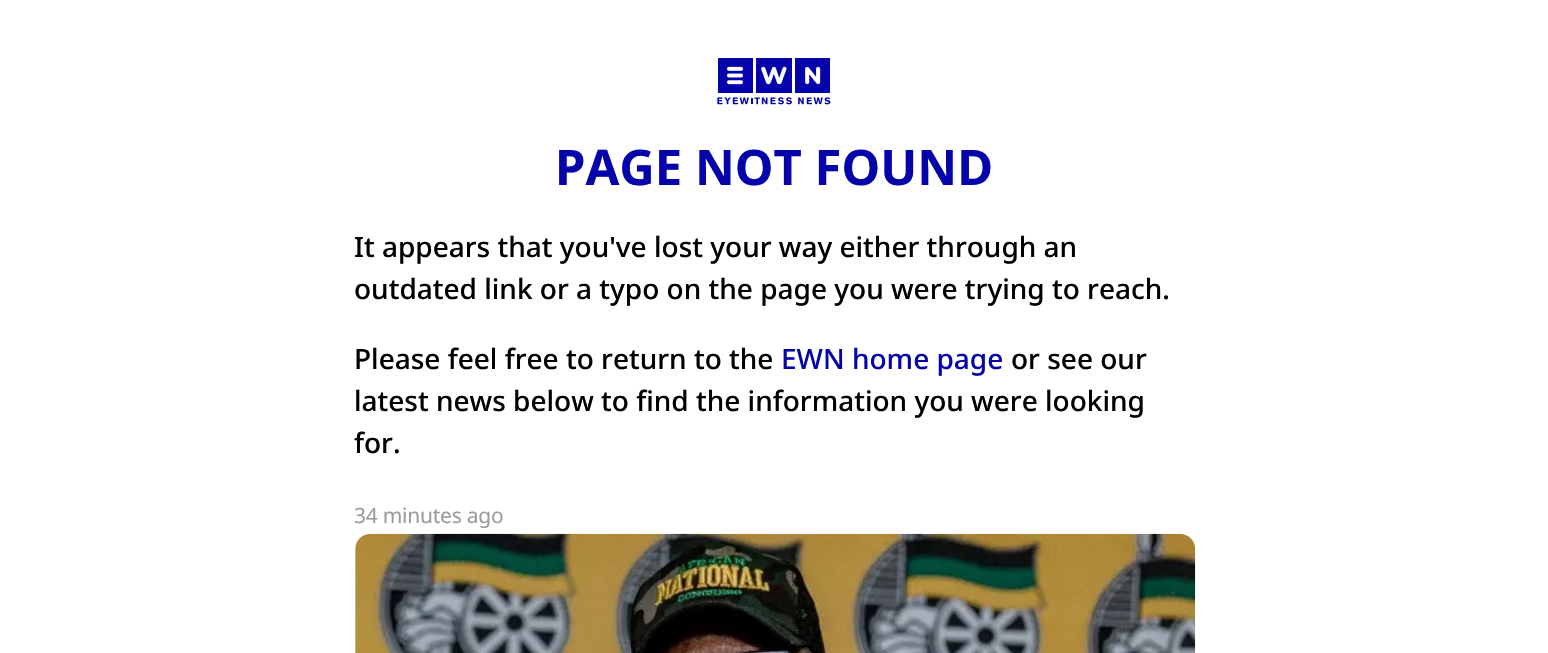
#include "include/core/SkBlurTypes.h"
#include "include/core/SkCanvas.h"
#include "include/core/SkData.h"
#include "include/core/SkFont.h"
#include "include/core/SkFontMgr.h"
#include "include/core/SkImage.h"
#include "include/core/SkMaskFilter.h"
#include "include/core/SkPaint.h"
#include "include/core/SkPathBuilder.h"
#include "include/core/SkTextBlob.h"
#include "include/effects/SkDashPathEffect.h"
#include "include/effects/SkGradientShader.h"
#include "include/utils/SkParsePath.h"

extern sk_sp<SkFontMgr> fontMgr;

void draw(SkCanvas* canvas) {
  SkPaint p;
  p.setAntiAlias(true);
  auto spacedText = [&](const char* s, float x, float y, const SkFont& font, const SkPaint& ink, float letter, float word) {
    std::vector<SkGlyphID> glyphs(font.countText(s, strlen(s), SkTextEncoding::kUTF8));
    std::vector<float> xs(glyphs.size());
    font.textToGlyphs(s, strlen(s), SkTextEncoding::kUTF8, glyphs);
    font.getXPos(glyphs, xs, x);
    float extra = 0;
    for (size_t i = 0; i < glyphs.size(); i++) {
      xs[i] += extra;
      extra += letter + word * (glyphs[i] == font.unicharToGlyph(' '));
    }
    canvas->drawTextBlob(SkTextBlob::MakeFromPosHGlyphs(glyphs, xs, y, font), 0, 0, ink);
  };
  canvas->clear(SK_ColorWHITE);
  canvas->drawImageRect(SkImages::DeferredFromEncodedData(SkData::MakeFromFileName("images/1.png")), SkRect::MakeLTRB(717, 58, 831, 105), SkSamplingOptions());
  p.setColor(SkColorSetRGB(237, 237, 237));
  canvas->drawRoundRect(SkRect::MakeLTRB(355, 534, 1195, 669), 16, 16, p);
  canvas->drawImageRect(SkImages::DeferredFromEncodedData(SkData::MakeFromFileName("images/2.png")), SkRect::MakeLTRB(355, 533, 1196, 653), SkSamplingOptions());
  SkFont font1(fontMgr->matchFamilyStyle("Noto Sans", SkFontStyle::Bold()), 49);
  font1.setSubpixel(true);
  p.setColor(SkColorSetRGB(5, 4, 170));
  canvas->drawString("PAGE NOT FOUND", 555, 185, font1, p);
  SkFont font2(fontMgr->matchFamilyStyle("Noto Sans", SkFontStyle(500, SkFontStyle::kNormal_Width, SkFontStyle::kUpright_Slant)), 28);
  font2.setSubpixel(true);
  p.setColor(SK_ColorBLACK);
  canvas->drawString("It appears that you've lost your way either through an", 354, 257, font2, p);
  canvas->drawString("outdated link or a typo on the page you were trying to reach.", 354, 299, font2, p);
  canvas->drawString("Please feel free to return to the", 354, 369, font2, p);
  p.setColor(SkColorSetRGB(5, 4, 170));
  canvas->drawString("EWN home page", 781, 369, font2, p);
  p.setColor(SK_ColorBLACK);
  canvas->drawString("or see our", 1011, 369, font2, p);
  canvas->drawString("latest news below to find the information you were looking", 354, 411, font2, p);
  canvas->drawString("for.", 354, 453, font2, p);
  SkFont font3(fontMgr->matchFamilyStyle("Noto Sans", SkFontStyle::Normal()), 21);
  font3.setSubpixel(true);
  p.setColor(SkColorSetRGB(155, 155, 155));
  spacedText("34 minutes ago", 354, 523, font3, p, -0.25f, 0);
}
